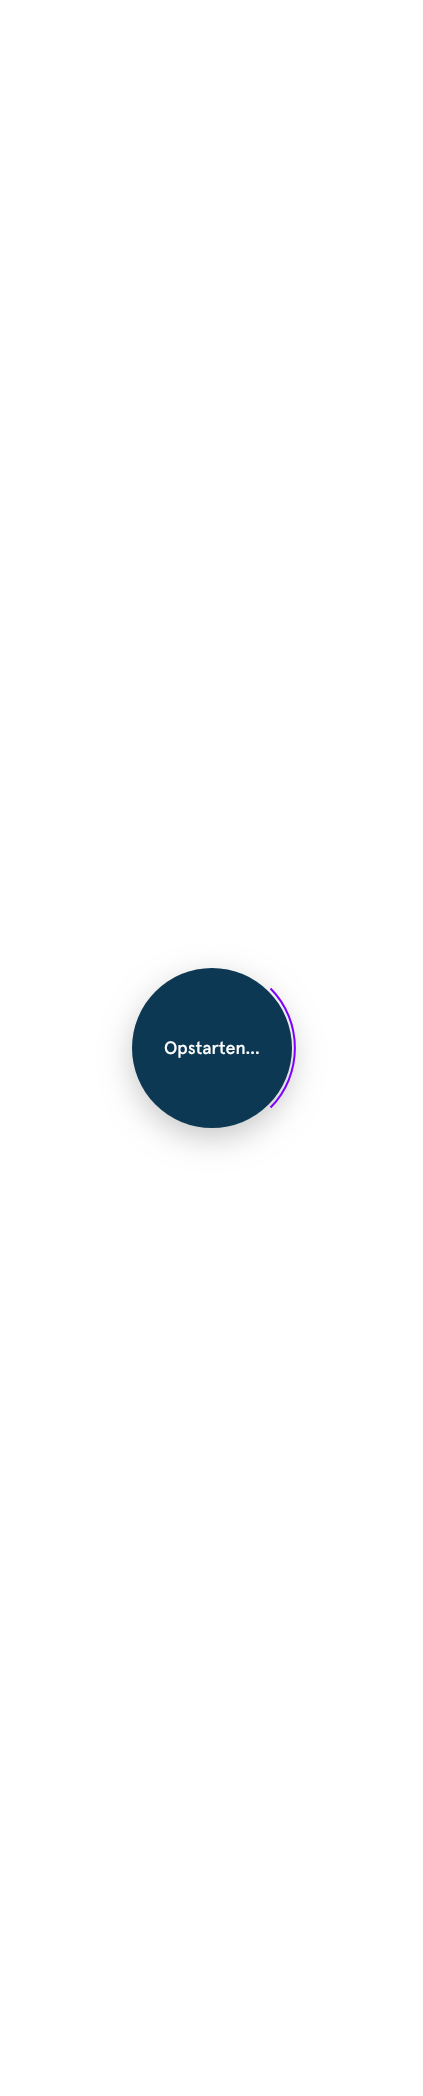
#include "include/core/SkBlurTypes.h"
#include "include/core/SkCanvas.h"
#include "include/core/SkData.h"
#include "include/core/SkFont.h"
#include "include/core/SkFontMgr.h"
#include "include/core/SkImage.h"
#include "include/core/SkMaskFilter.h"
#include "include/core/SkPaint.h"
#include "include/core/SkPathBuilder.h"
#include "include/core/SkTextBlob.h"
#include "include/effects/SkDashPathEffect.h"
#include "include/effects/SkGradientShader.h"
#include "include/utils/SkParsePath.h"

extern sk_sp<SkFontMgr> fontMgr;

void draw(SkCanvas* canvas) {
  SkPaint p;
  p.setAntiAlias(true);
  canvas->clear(SK_ColorWHITE);
  p.setColor(SkColorSetARGB(54, 0, 0, 0));
  p.setMaskFilter(SkMaskFilter::MakeBlur(kNormal_SkBlurStyle, 15));
  canvas->drawRoundRect(SkRect::MakeLTRB(132, 978, 292, 1138), 80, 80, p);
  p.setMaskFilter(nullptr);
  p.setColor(SkColorSetRGB(13, 56, 83));
  canvas->drawCircle(212, 1048, 80, p);
  p.setStyle(SkPaint::kStroke_Style);
  p.setStrokeWidth(2);
  p.setColor(SkColorSetRGB(125, 0, 254));
  canvas->drawPath(SkPathBuilder().moveTo(270.5f, 988.5f).cubicTo(303, 1021, 303, 1075, 270.5f, 1107.5f).detach(), p);
  SkFont font1(fontMgr->matchFamilyStyle("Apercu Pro", SkFontStyle(500, SkFontStyle::kNormal_Width, SkFontStyle::kUpright_Slant)), 18);
  font1.setSubpixel(true);
  p.setStyle(SkPaint::kFill_Style);
  p.setColor(SK_ColorWHITE);
  canvas->drawString("Opstarten...", 164, 1054, font1, p);
}
